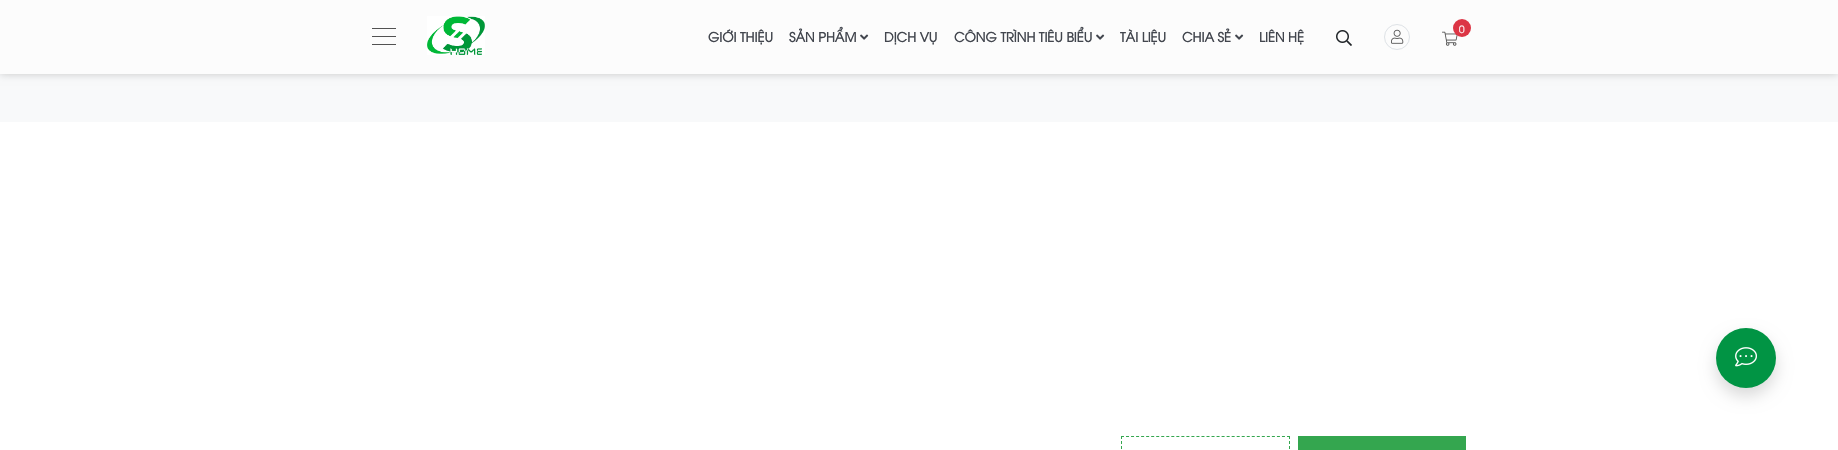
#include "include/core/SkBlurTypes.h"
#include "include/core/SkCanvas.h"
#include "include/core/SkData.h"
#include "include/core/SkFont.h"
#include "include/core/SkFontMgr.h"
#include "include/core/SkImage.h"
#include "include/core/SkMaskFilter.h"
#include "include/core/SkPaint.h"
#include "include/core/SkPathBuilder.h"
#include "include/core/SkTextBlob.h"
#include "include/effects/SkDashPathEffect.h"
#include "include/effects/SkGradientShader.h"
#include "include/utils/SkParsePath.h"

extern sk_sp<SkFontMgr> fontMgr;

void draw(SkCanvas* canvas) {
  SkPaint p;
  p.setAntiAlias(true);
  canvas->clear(SK_ColorWHITE);
  p.setColor(SkColorSetRGB(248, 249, 250));
  canvas->drawRect(SkRect::MakeLTRB(0, 74, 1838, 122), p);
  p.setColor(SkColorSetARGB(51, 0, 0, 0));
  p.setMaskFilter(SkMaskFilter::MakeBlur(kNormal_SkBlurStyle, 4));
  canvas->drawRect(SkRect::MakeLTRB(0, 0, 1838, 74), p);
  p.setMaskFilter(nullptr);
  p.setColor(SkColorSetRGB(252, 252, 252));
  canvas->drawRect(SkRect::MakeLTRB(0, 0, 1838, 74), p);
  p.setColor(SkColorSetRGB(82, 82, 82));
  canvas->drawRect(SkRect::MakeLTRB(372, 28, 396, 29), p);
  canvas->drawRect(SkRect::MakeLTRB(372, 36, 396, 37), p);
  canvas->drawRect(SkRect::MakeLTRB(372, 44, 396, 45), p);
  canvas->drawImageRect(SkImages::DeferredFromEncodedData(SkData::MakeFromFileName("images/1.png")), SkRect::MakeLTRB(427, 16, 485, 55), SkSamplingOptions());
  canvas->drawImageRect(SkImages::DeferredFromEncodedData(SkData::MakeFromFileName("images/2.png")), SkRect::MakeLTRB(860, 34, 869, 40), SkSamplingOptions());
  canvas->drawImageRect(SkImages::DeferredFromEncodedData(SkData::MakeFromFileName("images/2.png")), SkRect::MakeLTRB(1096, 34, 1105, 40), SkSamplingOptions());
  canvas->drawImageRect(SkImages::DeferredFromEncodedData(SkData::MakeFromFileName("images/2.png")), SkRect::MakeLTRB(1235, 34, 1244, 40), SkSamplingOptions());
  canvas->drawImageRect(SkImages::DeferredFromEncodedData(SkData::MakeFromFileName("images/3.png")), SkRect::MakeLTRB(1336, 30, 1352, 46), SkSamplingOptions());
  p.setStyle(SkPaint::kStroke_Style);
  p.setStrokeWidth(1);
  p.setColor(SkColorSetRGB(222, 226, 230));
  canvas->drawCircle(1397, 37, 12.5f, p);
  canvas->drawImageRect(SkImages::DeferredFromEncodedData(SkData::MakeFromFileName("images/4.png")), SkRect::MakeLTRB(1391, 29, 1404, 44), SkSamplingOptions());
  canvas->drawImageRect(SkImages::DeferredFromEncodedData(SkData::MakeFromFileName("images/5.png")), SkRect::MakeLTRB(1442, 31, 1458, 46), SkSamplingOptions());
  p.setStyle(SkPaint::kFill_Style);
  p.setColor(SkColorSetRGB(220, 53, 69));
  canvas->drawCircle(1462, 28, 9, p);
  p.setColor(SkColorSetARGB(38, 0, 0, 0));
  p.setMaskFilter(SkMaskFilter::MakeBlur(kNormal_SkBlurStyle, 8));
  canvas->drawRoundRect(SkRect::MakeLTRB(1716, 336, 1776, 396), 30, 30, p);
  p.setMaskFilter(nullptr);
  p.setColor(SkColorSetRGB(1, 148, 68));
  canvas->drawCircle(1746, 358, 30, p);
  canvas->drawImageRect(SkImages::DeferredFromEncodedData(SkData::MakeFromFileName("images/6.png")), SkRect::MakeLTRB(1735, 347, 1757, 367), SkSamplingOptions());
  p.setStyle(SkPaint::kStroke_Style);
  p.setColor(SkColorSetRGB(52, 166, 79));
  p.setPathEffect(SkDashPathEffect::Make({{3, 2.03f}}, 0));
  canvas->drawPath(SkPathBuilder().moveTo(1121, 436.5f).lineTo(1290, 436.5f).detach(), p);
  p.setPathEffect(nullptr);
  p.setPathEffect(SkDashPathEffect::Make({{3, 2}}, 0));
  canvas->drawPath(SkPathBuilder().moveTo(1289.5f, 436).lineTo(1289.5f, 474).detach(), p);
  p.setPathEffect(nullptr);
  p.setPathEffect(SkDashPathEffect::Make({{3, 2}}, 0));
  canvas->drawPath(SkPathBuilder().moveTo(1121.5f, 436).lineTo(1121.5f, 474).detach(), p);
  p.setPathEffect(nullptr);
  p.setStyle(SkPaint::kFill_Style);
  canvas->drawRect(SkRect::MakeLTRB(1298, 436, 1466, 450), p);
  SkFont font1(fontMgr->matchFamilyStyle("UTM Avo", SkFontStyle::Bold()), 13);
  font1.setSubpixel(true);
  p.setColor(SkColorSetRGB(66, 70, 78));
  canvas->drawString("GIỚI THIỆU", 708, 42, font1, p);
  canvas->drawString("SẢN PHẨM", 789, 42, font1, p);
  canvas->drawString("DỊCH VỤ", 884, 42, font1, p);
  canvas->drawString("CÔNG TRÌNH TIÊU BIỂU", 954, 42, font1, p);
  canvas->drawString("TÀI LIỆU", 1120, 42, font1, p);
  canvas->drawString("CHIA SẺ", 1182, 42, font1, p);
  canvas->drawString("LIÊN HỆ", 1259, 42, font1, p);
  SkFont font2(fontMgr->matchFamilyStyle("UTM Avo", SkFontStyle::Normal()), 10);
  font2.setSubpixel(true);
  p.setColor(SK_ColorWHITE);
  canvas->drawString("0", 1459, 33, font2, p);
}
